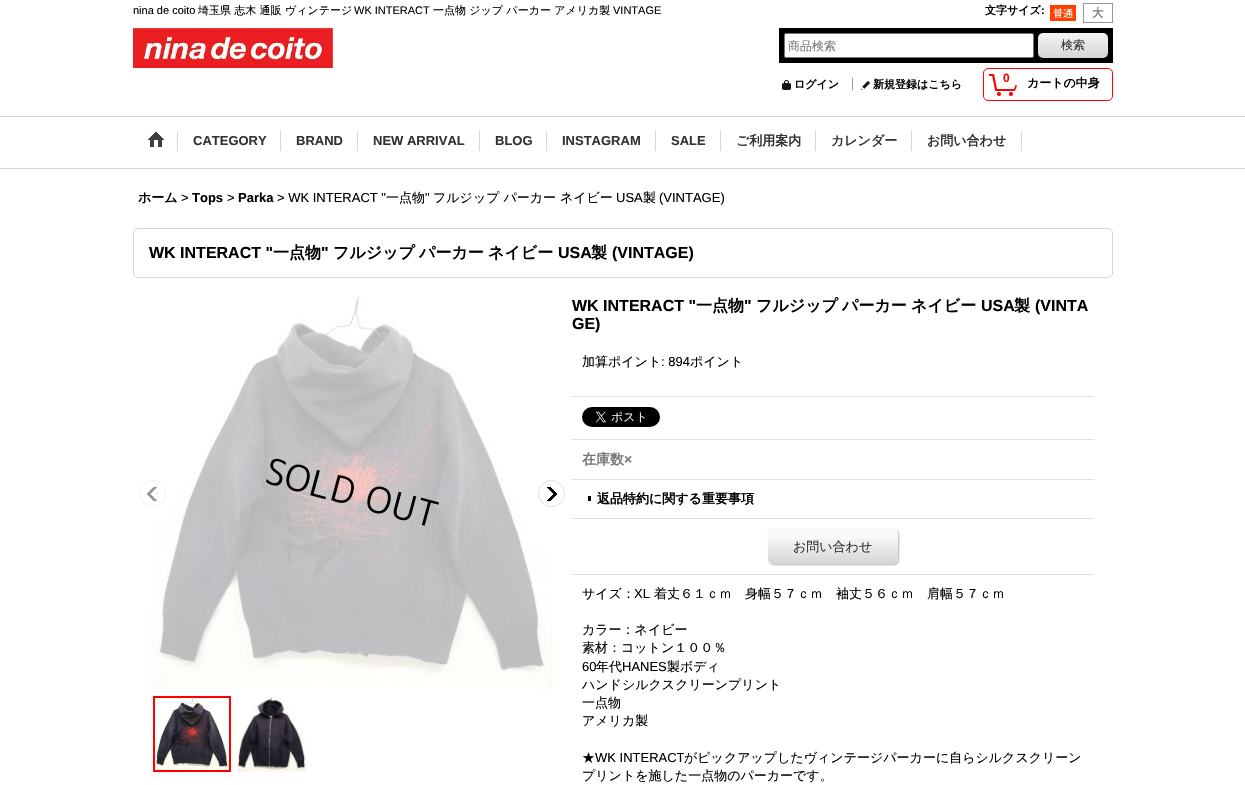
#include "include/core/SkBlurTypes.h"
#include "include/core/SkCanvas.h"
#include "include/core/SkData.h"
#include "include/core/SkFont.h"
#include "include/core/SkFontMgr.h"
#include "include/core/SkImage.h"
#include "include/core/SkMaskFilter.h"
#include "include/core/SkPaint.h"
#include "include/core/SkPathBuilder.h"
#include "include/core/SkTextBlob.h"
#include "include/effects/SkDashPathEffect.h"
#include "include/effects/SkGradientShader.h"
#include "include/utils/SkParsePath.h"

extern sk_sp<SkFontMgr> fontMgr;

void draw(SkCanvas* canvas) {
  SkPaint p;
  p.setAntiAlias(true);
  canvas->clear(SK_ColorWHITE);
  p.setColor(SkColorSetRGB(214, 214, 214));
  canvas->drawRect(SkRect::MakeLTRB(0, 116, 1245, 117), p);
  canvas->drawImageRect(SkImages::DeferredFromEncodedData(SkData::MakeFromFileName("images/1.png")), SkRect::MakeLTRB(1050, 5, 1076, 21), SkSamplingOptions());
  canvas->drawImageRect(SkImages::DeferredFromEncodedData(SkData::MakeFromFileName("images/2.png")), SkRect::MakeLTRB(1083, 3, 1113, 23), SkSamplingOptions());
  canvas->drawImageRect(SkImages::DeferredFromEncodedData(SkData::MakeFromFileName("images/3.png")), SkRect::MakeLTRB(133, 28, 333, 68), SkSamplingOptions());
  p.setColor(SK_ColorBLACK);
  canvas->drawRect(SkRect::MakeLTRB(779, 28, 1113, 63), p);
  p.setColor(SK_ColorWHITE);
  canvas->drawRoundRect(SkRect::MakeLTRB(784.5f, 33.5f, 1033.5f, 57.5f), 1.5f, 1.5f, p);
  p.setStyle(SkPaint::kStroke_Style);
  p.setStrokeWidth(1);
  p.setColor(SkColorSetRGB(118, 118, 118));
  canvas->drawRoundRect(SkRect::MakeLTRB(784.5f, 33.5f, 1033.5f, 57.5f), 1.5f, 1.5f, p);
  canvas->drawImageRect(SkImages::DeferredFromEncodedData(SkData::MakeFromFileName("images/4.png")), SkRect::MakeLTRB(1038, 33, 1108, 58), SkSamplingOptions());
  canvas->drawImageRect(SkImages::DeferredFromEncodedData(SkData::MakeFromFileName("images/5.png")), SkRect::MakeLTRB(782, 80, 791, 90), SkSamplingOptions());
  p.setStyle(SkPaint::kFill_Style);
  p.setColor(SkColorSetRGB(153, 153, 153));
  canvas->drawRect(SkRect::MakeLTRB(852, 78, 853, 90), p);
  canvas->drawImageRect(SkImages::DeferredFromEncodedData(SkData::MakeFromFileName("images/6.png")), SkRect::MakeLTRB(861, 81, 870, 90), SkSamplingOptions());
  p.setStyle(SkPaint::kStroke_Style);
  p.setColor(SkColorSetRGB(255, 0, 0));
  canvas->drawRoundRect(SkRect::MakeLTRB(983.5f, 68.5f, 1112.5f, 100.5f), 4.5f, 4.5f, p);
  canvas->drawImageRect(SkImages::DeferredFromEncodedData(SkData::MakeFromFileName("images/7.png")), SkRect::MakeLTRB(989, 74, 1017, 96), SkSamplingOptions());
  p.setStyle(SkPaint::kFill_Style);
  p.setColor(SkColorSetRGB(214, 214, 214));
  canvas->drawRect(SkRect::MakeLTRB(0, 168, 1245, 169), p);
  canvas->drawRect(SkRect::MakeLTRB(177, 131, 178, 151), p);
  canvas->drawImageRect(SkImages::DeferredFromEncodedData(SkData::MakeFromFileName("images/8.png")), SkRect::MakeLTRB(148, 132, 164, 147), SkSamplingOptions());
  canvas->drawRect(SkRect::MakeLTRB(280, 131, 281, 151), p);
  canvas->drawRect(SkRect::MakeLTRB(357, 131, 358, 151), p);
  canvas->drawRect(SkRect::MakeLTRB(479, 131, 480, 151), p);
  canvas->drawRect(SkRect::MakeLTRB(546, 131, 547, 151), p);
  canvas->drawRect(SkRect::MakeLTRB(655, 131, 656, 151), p);
  canvas->drawRect(SkRect::MakeLTRB(720, 131, 721, 151), p);
  canvas->drawRect(SkRect::MakeLTRB(815, 131, 816, 151), p);
  canvas->drawRect(SkRect::MakeLTRB(911, 131, 912, 151), p);
  canvas->drawRect(SkRect::MakeLTRB(1021, 131, 1022, 151), p);
  p.setStyle(SkPaint::kStroke_Style);
  canvas->drawRoundRect(SkRect::MakeLTRB(133.5f, 228.5f, 1112.5f, 277.5f), 4.5f, 4.5f, p);
  canvas->drawImageRect(SkImages::DeferredFromEncodedData(SkData::MakeFromFileName("images/9.png")), SkRect::MakeLTRB(152, 297, 552, 689), SkSamplingOptions());
  canvas->drawImageRect(SkImages::DeferredFromEncodedData(SkData::MakeFromFileName("images/10.png")), SkRect::MakeLTRB(147, 487, 157, 501), SkSamplingOptions());
  p.setColor(SkColorSetRGB(243, 242, 244));
  canvas->drawCircle(152.5f, 493.5f, 13, p);
  canvas->drawImageRect(SkImages::DeferredFromEncodedData(SkData::MakeFromFileName("images/11.png")), SkRect::MakeLTRB(547, 487, 557, 501), SkSamplingOptions());
  p.setColor(SkColorSetRGB(224, 223, 227));
  canvas->drawCircle(551.5f, 493.5f, 13, p);
  p.setStrokeWidth(2);
  p.setColor(SkColorSetRGB(255, 0, 0));
  canvas->drawRect(SkRect::MakeLTRB(154, 697, 230, 771), p);
  canvas->drawImageRect(SkImages::DeferredFromEncodedData(SkData::MakeFromFileName("images/12.png")), SkRect::MakeLTRB(155, 698, 229, 770), SkSamplingOptions());
  canvas->drawImageRect(SkImages::DeferredFromEncodedData(SkData::MakeFromFileName("images/13.png")), SkRect::MakeLTRB(237, 696, 306, 772), SkSamplingOptions());
  p.setStyle(SkPaint::kFill_Style);
  p.setColor(SkColorSetRGB(224, 223, 227));
  canvas->drawRect(SkRect::MakeLTRB(572, 396, 1094, 397), p);
  canvas->drawRect(SkRect::MakeLTRB(572, 439, 1094, 440), p);
  canvas->drawImageRect(SkImages::DeferredFromEncodedData(SkData::MakeFromFileName("images/14.png")), SkRect::MakeLTRB(582, 407, 660, 427), SkSamplingOptions());
  canvas->drawRect(SkRect::MakeLTRB(572, 479, 1094, 480), p);
  canvas->drawRect(SkRect::MakeLTRB(572, 518, 1094, 519), p);
  p.setColor(SK_ColorBLACK);
  canvas->drawRect(SkRect::MakeLTRB(588, 496, 591, 501), p);
  p.setColor(SkColorSetRGB(224, 223, 227));
  canvas->drawRect(SkRect::MakeLTRB(572, 574, 1094, 575), p);
  p.setColor(SkColorSetARGB(77, 0, 0, 0));
  p.setMaskFilter(SkMaskFilter::MakeBlur(kNormal_SkBlurStyle, 1));
  canvas->drawRoundRect(SkRect::MakeLTRB(769, 530, 899, 565), 5, 5, p);
  p.setMaskFilter(nullptr);
  p.setColor(SkColorSetRGB(249, 249, 249));
  canvas->drawRoundRect(SkRect::MakeLTRB(768, 529, 898, 564), 5, 5, p);
  canvas->drawImageRect(SkImages::DeferredFromEncodedData(SkData::MakeFromFileName("images/15.png")), SkRect::MakeLTRB(768, 539, 898, 564), SkSamplingOptions());
  SkFont font1(fontMgr->matchFamilyStyle("Liberation Sans", SkFontStyle::Normal()), 11);
  font1.setSubpixel(true);
  p.setColor(SK_ColorBLACK);
  canvas->drawString("nina de coito", 133, 14, font1, p);
  SkFont font2(fontMgr->matchFamilyStyle("WenQuanYi Zen Hei", SkFontStyle(500, SkFontStyle::kNormal_Width, SkFontStyle::kUpright_Slant)), 11);
  font2.setSubpixel(true);
  canvas->drawString("埼玉県 志木 通販 ヴィンテージ", 198, 14, font2, p);
  canvas->drawString("WK INTERACT", 354, 14, font1, p);
  canvas->drawString("一点物 ジップ パーカー アメリカ製", 433, 14, font2, p);
  canvas->drawString("VINTAGE", 613, 14, font1, p);
  SkFont font3(fontMgr->matchFamilyStyle("WenQuanYi Zen Hei", SkFontStyle::Bold()), 11);
  font3.setSubpixel(true);
  canvas->drawString("文字サイズ", 985, 14, font3, p);
  SkFont font4(fontMgr->matchFamilyStyle("Liberation Sans", SkFontStyle::Bold()), 11);
  font4.setSubpixel(true);
  canvas->drawString(":", 1041, 14, font4, p);
  SkFont font5(fontMgr->matchFamilyStyle("WenQuanYi Zen Hei", SkFontStyle(500, SkFontStyle::kNormal_Width, SkFontStyle::kUpright_Slant)), 12);
  font5.setSubpixel(true);
  p.setColor(SkColorSetRGB(119, 119, 119));
  canvas->drawString("商品検索", 788, 50, font5, p);
  p.setColor(SkColorSetRGB(51, 51, 51));
  canvas->drawString("検索", 1061, 49, font5, p);
  p.setColor(SK_ColorBLACK);
  canvas->drawString("ログイン", 794, 88, font3, p);
  canvas->drawString("新規登録はこちら", 873, 88, font3, p);
  SkFont font6(fontMgr->matchFamilyStyle("Liberation Sans", SkFontStyle::Bold()), 12);
  font6.setSubpixel(true);
  p.setColor(SkColorSetRGB(255, 0, 0));
  canvas->drawString("0", 1003, 82, font6, p);
  SkFont font7(fontMgr->matchFamilyStyle("WenQuanYi Zen Hei", SkFontStyle::Bold()), 12);
  font7.setSubpixel(true);
  p.setColor(SK_ColorBLACK);
  canvas->drawString("カートの中身", 1027, 87, font7, p);
  SkFont font8(fontMgr->matchFamilyStyle("Liberation Sans", SkFontStyle::Bold()), 13);
  font8.setSubpixel(true);
  p.setColor(SkColorSetRGB(51, 51, 51));
  canvas->drawString("CATEGORY", 193, 145, font8, p);
  canvas->drawString("BRAND", 296, 145, font8, p);
  canvas->drawString("NEW ARRIVAL", 373, 145, font8, p);
  canvas->drawString("BLOG", 495, 145, font8, p);
  canvas->drawString("INSTAGRAM", 562, 145, font8, p);
  canvas->drawString("SALE", 671, 145, font8, p);
  SkFont font9(fontMgr->matchFamilyStyle("WenQuanYi Zen Hei", SkFontStyle::Bold()), 13);
  font9.setSubpixel(true);
  canvas->drawString("ご利用案内", 736, 145, font9, p);
  canvas->drawString("カレンダー", 831, 145, font9, p);
  canvas->drawString("お問い合わせ", 927, 145, font9, p);
  p.setColor(SK_ColorBLACK);
  canvas->drawString("ホーム", 138, 202, font9, p);
  SkFont font10(fontMgr->matchFamilyStyle("Liberation Sans", SkFontStyle::Normal()), 13);
  font10.setSubpixel(true);
  canvas->drawString(">", 181, 202, font10, p);
  canvas->drawString("Tops", 192, 202, font8, p);
  canvas->drawString(">", 227, 202, font10, p);
  canvas->drawString("Parka", 238, 202, font8, p);
  canvas->drawString("> WK INTERACT \"", 277, 202, font10, p);
  SkFont font11(fontMgr->matchFamilyStyle("WenQuanYi Zen Hei", SkFontStyle(500, SkFontStyle::kNormal_Width, SkFontStyle::kUpright_Slant)), 13);
  font11.setSubpixel(true);
  canvas->drawString("一点物", 386, 202, font11, p);
  canvas->drawString("\"", 425, 202, font10, p);
  canvas->drawString("フルジップ パーカー ネイビー", 433, 202, font11, p);
  canvas->drawString("USA", 616, 202, font10, p);
  canvas->drawString("製", 643, 202, font11, p);
  canvas->drawString("(VINTAGE)", 659, 202, font10, p);
  SkFont font12(fontMgr->matchFamilyStyle("Liberation Sans", SkFontStyle::Bold()), 16);
  font12.setSubpixel(true);
  canvas->drawString("WK INTERACT \"", 149, 258, font12, p);
  SkFont font13(fontMgr->matchFamilyStyle("WenQuanYi Zen Hei", SkFontStyle::Bold()), 16);
  font13.setSubpixel(true);
  canvas->drawString("一点物", 273, 258, font13, p);
  canvas->drawString("\"", 321, 258, font12, p);
  canvas->drawString("フルジップ", 333, 258, font13, p);
  canvas->drawString("パーカー", 419, 258, font13, p);
  canvas->drawString("ネイビー", 488, 258, font13, p);
  canvas->drawString("USA", 558, 258, font12, p);
  canvas->drawString("製", 591, 258, font13, p);
  canvas->drawString("(VINTAGE)", 612, 258, font12, p);
  canvas->drawString("WK INTERACT \"", 572, 311, font12, p);
  canvas->drawString("一点物", 696, 311, font13, p);
  canvas->drawString("\"", 744, 311, font12, p);
  canvas->drawString("フルジップ", 756, 311, font13, p);
  canvas->drawString("パーカー", 842, 311, font13, p);
  canvas->drawString("ネイビー", 911, 311, font13, p);
  canvas->drawString("USA", 981, 311, font12, p);
  canvas->drawString("製", 1014, 311, font13, p);
  canvas->drawString("(VINTA", 1035, 311, font12, p);
  canvas->drawString("GE)", 572, 329, font12, p);
  canvas->drawString("加算ポイント", 582, 366, font11, p);
  canvas->drawString(": 894", 661, 366, font10, p);
  canvas->drawString("ポイント", 690, 366, font11, p);
  SkFont font14(fontMgr->matchFamilyStyle("WenQuanYi Zen Hei", SkFontStyle::Bold()), 14);
  font14.setSubpixel(true);
  p.setColor(SkColorSetRGB(119, 119, 119));
  canvas->drawString("在庫数", 582, 464, font14, p);
  SkFont font15(fontMgr->matchFamilyStyle("Liberation Sans", SkFontStyle::Bold()), 14);
  font15.setSubpixel(true);
  canvas->drawString("×", 624, 464, font15, p);
  p.setColor(SK_ColorBLACK);
  canvas->drawString("返品特約に関する重要事項", 597, 503, font9, p);
  p.setColor(SkColorSetRGB(51, 51, 51));
  canvas->drawString("お問い合わせ", 793, 551, font11, p);
  p.setColor(SK_ColorBLACK);
  canvas->drawString("サイズ：", 582, 598, font11, p);
  canvas->drawString("XL", 634, 598, font10, p);
  canvas->drawString("着丈６１ｃｍ　身幅５７ｃｍ　袖丈５６ｃｍ　肩幅５７ｃｍ", 654, 598, font11, p);
  canvas->drawString("カラー：ネイビー", 582, 634, font11, p);
  canvas->drawString("素材：コットン１００％", 582, 652, font11, p);
  canvas->drawString("60", 582, 671, font10, p);
  canvas->drawString("年代", 596, 671, font11, p);
  canvas->drawString("HANES", 622, 671, font10, p);
  canvas->drawString("製ボディ", 667, 671, font11, p);
  canvas->drawString("ハンドシルクスクリーンプリント", 582, 689, font11, p);
  canvas->drawString("一点物", 582, 707, font11, p);
  canvas->drawString("アメリカ製", 582, 725, font11, p);
  canvas->drawString("★", 582, 762, font11, p);
  canvas->drawString("WK INTERACT", 595, 762, font10, p);
  canvas->drawString("がピックアップしたヴィンテージパーカーに自らシルクスクリーン", 684, 762, font11, p);
  canvas->drawString("プリントを施した一点物のパーカーです。", 582, 780, font11, p);
}
